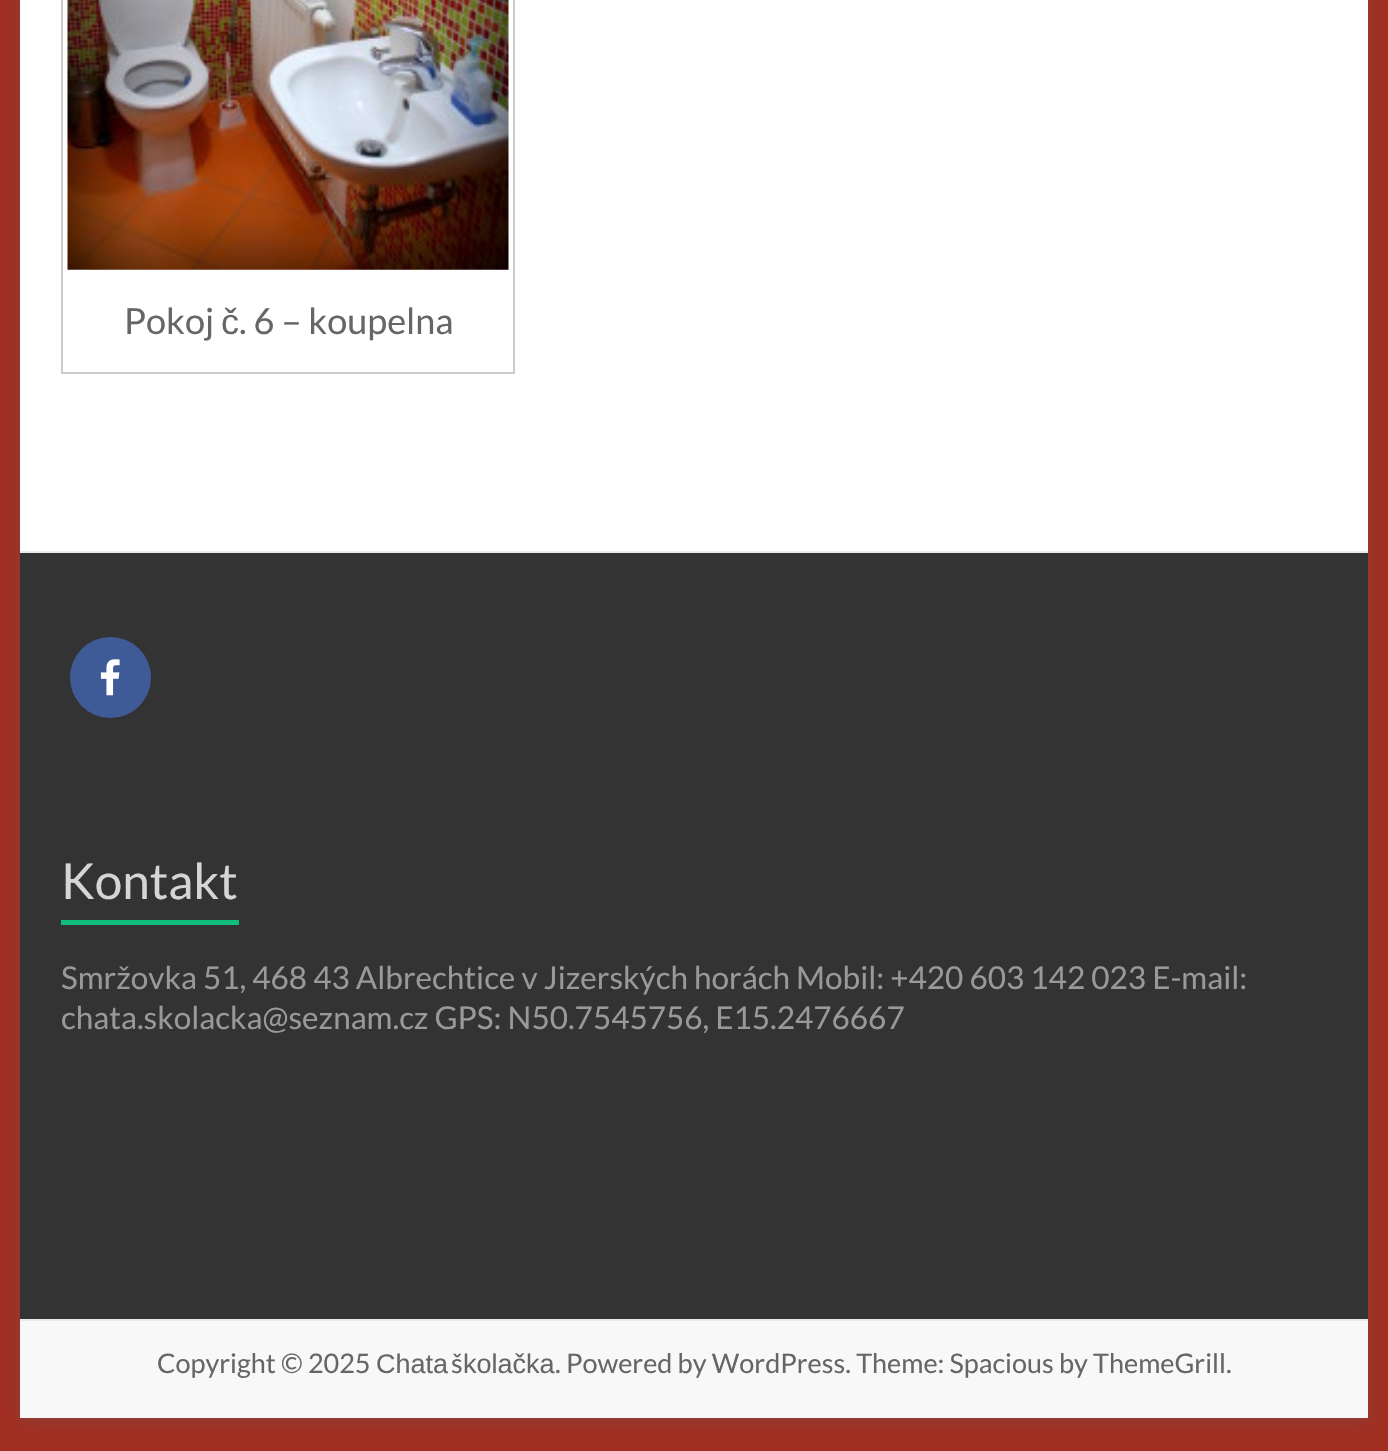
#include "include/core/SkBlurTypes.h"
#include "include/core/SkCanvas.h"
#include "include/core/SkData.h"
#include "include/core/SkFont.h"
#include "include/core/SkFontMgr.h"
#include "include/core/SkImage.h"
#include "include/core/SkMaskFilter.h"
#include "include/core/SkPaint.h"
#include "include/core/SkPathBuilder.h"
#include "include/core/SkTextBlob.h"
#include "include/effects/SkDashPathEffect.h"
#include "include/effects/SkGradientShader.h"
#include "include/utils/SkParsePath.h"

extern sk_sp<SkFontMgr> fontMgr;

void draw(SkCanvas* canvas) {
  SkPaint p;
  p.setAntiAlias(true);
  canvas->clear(SkColorSetRGB(160, 46, 33));
  p.setColor(SkColorSetARGB(77, 100, 100, 100));
  p.setMaskFilter(SkMaskFilter::MakeBlur(kNormal_SkBlurStyle, 7));
  canvas->drawRect(SkRect::MakeLTRB(20, -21, 1368, 1422), p);
  p.setMaskFilter(nullptr);
  p.setColor(SK_ColorWHITE);
  canvas->drawRect(SkRect::MakeLTRB(20, 0, 1368, 551), p);
  p.setStyle(SkPaint::kStroke_Style);
  p.setStrokeWidth(2);
  p.setColor(SkColorSetRGB(204, 204, 204));
  canvas->drawRect(SkRect::MakeLTRB(62, -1, 514, 373), p);
  canvas->drawImageRect(SkImages::DeferredFromEncodedData(SkData::MakeFromFileName("images/1.png")), SkRect::MakeLTRB(67, 0, 509, 270), SkSamplingOptions());
  p.setStyle(SkPaint::kFill_Style);
  p.setColor(SkColorSetRGB(51, 51, 51));
  canvas->drawRect(SkRect::MakeLTRB(20, 553, 1368, 1319), p);
  p.setColor(SkColorSetRGB(234, 234, 234));
  canvas->drawRect(SkRect::MakeLTRB(20, 551, 1368, 553), p);
  p.setColor(SkColorSetRGB(62, 91, 152));
  canvas->drawCircle(110.5f, 677.5f, 40.5f, p);
  canvas->drawImageRect(SkImages::DeferredFromEncodedData(SkData::MakeFromFileName("images/2.png")), SkRect::MakeLTRB(100, 659, 120, 696), SkSamplingOptions());
  p.setColor(SkColorSetRGB(15, 190, 124));
  canvas->drawRect(SkRect::MakeLTRB(61, 920, 239, 925), p);
  p.setColor(SkColorSetRGB(248, 248, 248));
  canvas->drawRect(SkRect::MakeLTRB(20, 1321, 1368, 1418), p);
  p.setColor(SkColorSetRGB(234, 234, 234));
  canvas->drawRect(SkRect::MakeLTRB(20, 1319, 1368, 1321), p);
  SkFont font1(fontMgr->matchFamilyStyle("Lato", SkFontStyle::Normal()), 36);
  font1.setSubpixel(true);
  p.setColor(SkColorSetRGB(102, 102, 102));
  canvas->drawString("Pokoj", 124, 334, font1, p);
  SkFont font2(fontMgr->matchFamilyStyle("Liberation Sans", SkFontStyle::Normal()), 36);
  font2.setSubpixel(true);
  canvas->drawString("č", 221, 334, font2, p);
  canvas->drawString(". 6 – koupelna", 239, 334, font1, p);
  SkFont font3(fontMgr->matchFamilyStyle("Lato", SkFontStyle::Normal()), 49.5f);
  font3.setSubpixel(true);
  p.setColor(SkColorSetRGB(213, 213, 213));
  canvas->drawString("Kontakt", 61, 899, font3, p);
  SkFont font4(fontMgr->matchFamilyStyle("Lato", SkFontStyle::Normal()), 31.5f);
  font4.setSubpixel(true);
  p.setColor(SkColorSetRGB(153, 153, 153));
  canvas->drawString("Smržovka 51, 468 43 Albrechtice v Jizerských horách Mobil: +420 603 142 023 E-mail:", 61, 989, font4, p);
  canvas->drawString("chata.skolacka@seznam.cz GPS: N50.7545756, E15.2476667", 61, 1029, font4, p);
  SkFont font5(fontMgr->matchFamilyStyle("Lato", SkFontStyle::Normal()), 27);
  font5.setSubpixel(true);
  p.setColor(SkColorSetRGB(102, 102, 102));
  canvas->drawString("Copyright © 2025", 157, 1373, font5, p);
  SkFont font6(fontMgr->matchFamilyStyle("Liberation Sans", SkFontStyle::Normal()), 27);
  font6.setSubpixel(true);
  canvas->drawString("Chata", 376, 1373, font6, p);
  canvas->drawString("š", 451, 1373, font5, p);
  canvas->drawString("kolačka", 463, 1373, font6, p);
  canvas->drawString(". Powered by WordPress. Theme: Spacious by ThemeGrill.", 555, 1373, font5, p);
}
